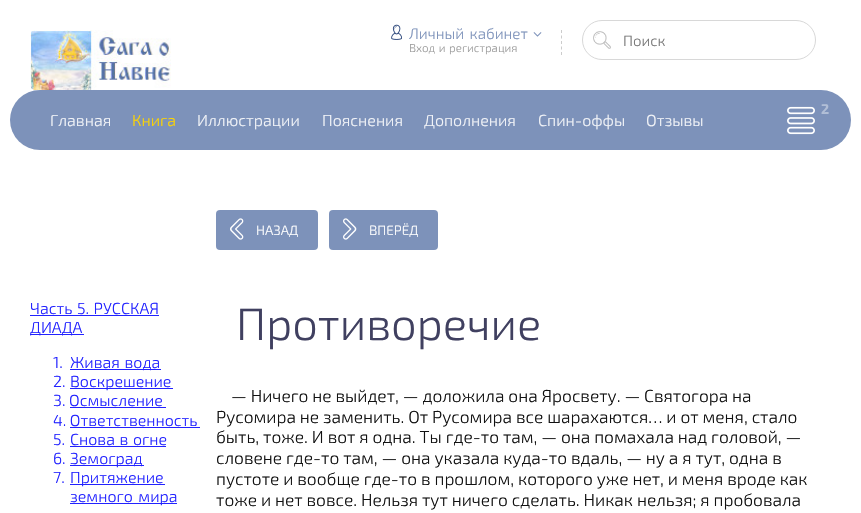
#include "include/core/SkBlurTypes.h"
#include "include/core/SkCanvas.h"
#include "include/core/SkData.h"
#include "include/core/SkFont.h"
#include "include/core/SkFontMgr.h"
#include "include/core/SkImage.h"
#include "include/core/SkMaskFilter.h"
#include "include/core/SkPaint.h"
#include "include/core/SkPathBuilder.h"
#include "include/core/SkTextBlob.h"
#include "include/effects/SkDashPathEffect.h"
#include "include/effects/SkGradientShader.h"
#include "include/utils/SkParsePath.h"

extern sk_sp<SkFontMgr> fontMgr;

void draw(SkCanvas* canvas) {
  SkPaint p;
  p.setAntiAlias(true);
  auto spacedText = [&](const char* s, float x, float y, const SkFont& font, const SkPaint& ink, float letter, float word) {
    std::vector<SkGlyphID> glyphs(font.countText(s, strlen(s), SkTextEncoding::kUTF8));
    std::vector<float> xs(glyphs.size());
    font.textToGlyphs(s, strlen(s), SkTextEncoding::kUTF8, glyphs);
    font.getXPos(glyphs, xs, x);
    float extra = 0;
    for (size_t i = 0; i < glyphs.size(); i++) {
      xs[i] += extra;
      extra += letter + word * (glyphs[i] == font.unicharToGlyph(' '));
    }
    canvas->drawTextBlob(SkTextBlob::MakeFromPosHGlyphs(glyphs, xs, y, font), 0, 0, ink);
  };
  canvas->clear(SK_ColorWHITE);
  canvas->drawImageRect(SkImages::DeferredFromEncodedData(SkData::MakeFromFileName("images/1.png")), SkRect::MakeLTRB(30, 30, 171, 90), SkSamplingOptions());
  canvas->drawImageRect(SkImages::DeferredFromEncodedData(SkData::MakeFromFileName("images/2.png")), SkRect::MakeLTRB(391, 24, 402, 40), SkSamplingOptions());
  canvas->drawImageRect(SkImages::DeferredFromEncodedData(SkData::MakeFromFileName("images/3.png")), SkRect::MakeLTRB(533, 32, 542, 37), SkSamplingOptions());
  p.setStyle(SkPaint::kStroke_Style);
  p.setStrokeWidth(1);
  p.setColor(SkColorSetRGB(204, 204, 204));
  p.setPathEffect(SkDashPathEffect::Make({{3, 2.5f}}, 0));
  canvas->drawPath(SkPathBuilder().moveTo(561.5f, 30).lineTo(561.5f, 55).detach(), p);
  p.setPathEffect(nullptr);
  p.setColor(SkColorSetRGB(216, 216, 216));
  canvas->drawRoundRect(SkRect::MakeLTRB(582.5f, 20.5f, 815.5f, 59.5f), 19.5f, 19.5f, p);
  canvas->drawImageRect(SkImages::DeferredFromEncodedData(SkData::MakeFromFileName("images/4.png")), SkRect::MakeLTRB(593, 31, 611, 49), SkSamplingOptions());
  p.setStyle(SkPaint::kFill_Style);
  p.setColor(SkColorSetRGB(125, 146, 186));
  canvas->drawRoundRect(SkRect::MakeLTRB(10, 90, 851, 150), 30, 30, p);
  canvas->drawImageRect(SkImages::DeferredFromEncodedData(SkData::MakeFromFileName("images/5.png")), SkRect::MakeLTRB(787, 106, 815, 135), SkSamplingOptions());
  p.setColor(SkColorSetRGB(34, 34, 255));
  canvas->drawRect(SkRect::MakeLTRB(30, 315, 159, 316), p);
  canvas->drawRect(SkRect::MakeLTRB(30, 334, 84, 335), p);
  canvas->drawRect(SkRect::MakeLTRB(70, 369, 161, 370), p);
  canvas->drawRect(SkRect::MakeLTRB(70, 388, 173, 389), p);
  canvas->drawRect(SkRect::MakeLTRB(70, 407, 166, 408), p);
  canvas->drawRect(SkRect::MakeLTRB(70, 427, 200, 428), p);
  canvas->drawRect(SkRect::MakeLTRB(70, 446, 166, 447), p);
  canvas->drawRect(SkRect::MakeLTRB(70, 465, 144, 466), p);
  canvas->drawRect(SkRect::MakeLTRB(70, 484, 165, 485), p);
  canvas->drawRect(SkRect::MakeLTRB(70, 503, 177, 504), p);
  p.setColor(SkColorSetRGB(125, 146, 186));
  canvas->drawRoundRect(SkRect::MakeLTRB(216, 210, 318, 250), 4, 4, p);
  canvas->drawImageRect(SkImages::DeferredFromEncodedData(SkData::MakeFromFileName("images/6.png")), SkRect::MakeLTRB(230, 218, 244, 240), SkSamplingOptions());
  canvas->drawRoundRect(SkRect::MakeLTRB(329, 210, 438, 250), 4, 4, p);
  canvas->drawImageRect(SkImages::DeferredFromEncodedData(SkData::MakeFromFileName("images/7.png")), SkRect::MakeLTRB(343, 218, 357, 240), SkSamplingOptions());
  SkFont font1(fontMgr->matchFamilyStyle("Exo 2", SkFontStyle(300, SkFontStyle::kNormal_Width, SkFontStyle::kUpright_Slant)), 15.25f);
  font1.setSubpixel(true);
  spacedText("Личный кабинет", 409, 39, font1, p, 0, 2);
  SkFont font2(fontMgr->matchFamilyStyle("Exo 2", SkFontStyle(300, SkFontStyle::kNormal_Width, SkFontStyle::kUpright_Slant)), 11.5f);
  font2.setSubpixel(true);
  p.setColor(SkColorSetRGB(153, 153, 153));
  spacedText("Вход и регистрация", 409, 52, font2, p, 0, 1);
  SkFont font3(fontMgr->matchFamilyStyle("Exo 2", SkFontStyle(300, SkFontStyle::kNormal_Width, SkFontStyle::kUpright_Slant)), 15);
  font3.setSubpixel(true);
  p.setColor(SkColorSetRGB(117, 117, 117));
  canvas->drawString("Поиск", 623, 46, font3, p);
  SkFont font4(fontMgr->matchFamilyStyle("Exo 2", SkFontStyle::Bold()), 14);
  font4.setSubpixel(true);
  p.setColor(SkColorSetRGB(177, 190, 214));
  canvas->drawString("2", 821, 114, font4, p);
  SkFont font5(fontMgr->matchFamilyStyle("Exo 2", SkFontStyle(300, SkFontStyle::kNormal_Width, SkFontStyle::kUpright_Slant)), 16);
  font5.setSubpixel(true);
  p.setColor(SkColorSetRGB(242, 244, 248));
  canvas->drawString("Главная", 50, 126, font5, p);
  p.setColor(SkColorSetRGB(255, 213, 0));
  canvas->drawString("Книга", 132, 126, font5, p);
  p.setColor(SkColorSetRGB(242, 244, 248));
  canvas->drawString("Иллюстрации", 197, 126, font5, p);
  canvas->drawString("Пояснения", 322, 126, font5, p);
  canvas->drawString("Дополнения", 424, 126, font5, p);
  canvas->drawString("Спин-оффы", 538, 126, font5, p);
  canvas->drawString("Отзывы", 646, 126, font5, p);
  p.setColor(SkColorSetRGB(34, 34, 255));
  spacedText("Часть 5. РУССКАЯ", 30, 314, font5, p, 0, 1);
  canvas->drawString("ДИАДА", 30, 333, font5, p);
  canvas->drawString("1.", 53, 368, font5, p);
  spacedText("Живая вода", 70, 368, font5, p, 0, 1);
  canvas->drawString("2.", 53, 387, font5, p);
  canvas->drawString("Воскрешение", 70, 387, font5, p);
  canvas->drawString("3. Осмысление", 53, 406, font5, p);
  canvas->drawString("4. Ответственность", 53, 426, font5, p);
  canvas->drawString("5.", 53, 445, font5, p);
  spacedText("Снова в огне", 70, 445, font5, p, 0, 1);
  canvas->drawString("6.", 53, 464, font5, p);
  canvas->drawString("Земоград", 70, 464, font5, p);
  canvas->drawString("7.", 53, 483, font5, p);
  canvas->drawString("Притяжение", 70, 483, font5, p);
  spacedText("земного мира", 70, 502, font5, p, 0, 2);
  SkFont font6(fontMgr->matchFamilyStyle("Exo 2", SkFontStyle(300, SkFontStyle::kNormal_Width, SkFontStyle::kUpright_Slant)), 13.5f);
  font6.setSubpixel(true);
  p.setColor(SK_ColorWHITE);
  canvas->drawString("НАЗАД", 256, 235, font6, p);
  canvas->drawString("ВПЕРЁД", 369, 235, font6, p);
  SkFont font7(fontMgr->matchFamilyStyle("Exo 2", SkFontStyle(300, SkFontStyle::kNormal_Width, SkFontStyle::kUpright_Slant)), 45.25f);
  font7.setSubpixel(true);
  p.setColor(SkColorSetRGB(64, 64, 96));
  canvas->drawString("Противоречие", 236, 340, font7, p);
  SkFont font8(fontMgr->matchFamilyStyle("Exo 2", SkFontStyle(300, SkFontStyle::kNormal_Width, SkFontStyle::kUpright_Slant)), 17.35f);
  font8.setSubpixel(true);
  p.setColor(SkColorSetRGB(17, 17, 17));
  canvas->drawString("— Ничего не выйдет, — доложила она Яросвету. — Святогора на", 231, 402, font8, p);
  canvas->drawString("Русомира не заменить. От Русомира все шарахаются… и от меня, стало", 216, 423, font8, p);
  canvas->drawString("быть, тоже. И вот я одна. Ты где-то там, — она помахала над головой, —", 216, 443, font8, p);
  canvas->drawString("словене где-то там, — она указала куда-то вдаль, — ну а я тут, одна в", 216, 464, font8, p);
  canvas->drawString("пустоте и вообще где-то в прошлом, которого уже нет, и меня вроде как", 216, 485, font8, p);
  canvas->drawString("тоже и нет вовсе. Нельзя тут ничего сделать. Никак нельзя; я пробовала", 216, 506, font8, p);
}
